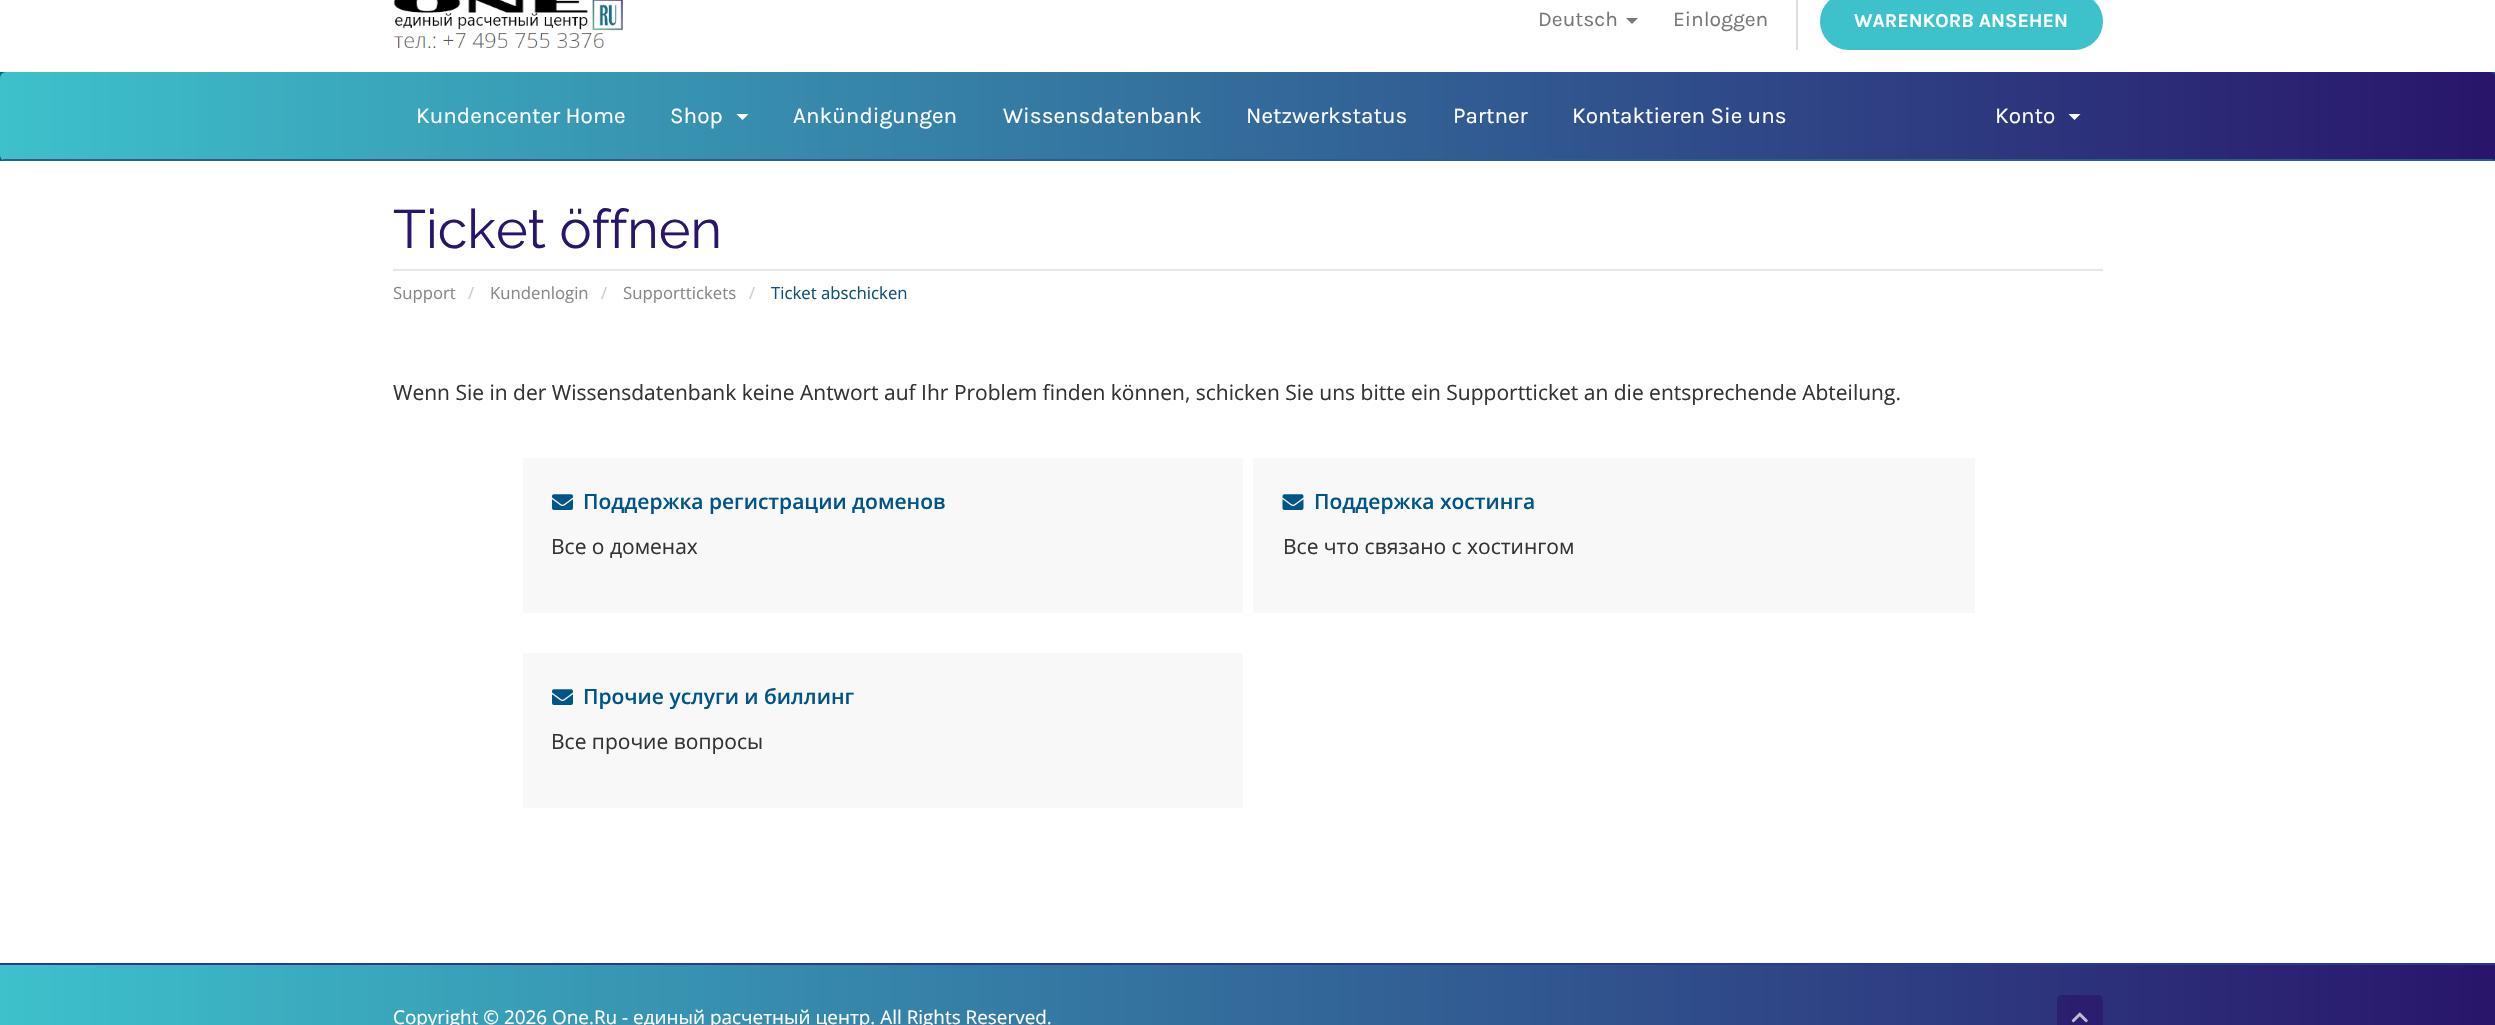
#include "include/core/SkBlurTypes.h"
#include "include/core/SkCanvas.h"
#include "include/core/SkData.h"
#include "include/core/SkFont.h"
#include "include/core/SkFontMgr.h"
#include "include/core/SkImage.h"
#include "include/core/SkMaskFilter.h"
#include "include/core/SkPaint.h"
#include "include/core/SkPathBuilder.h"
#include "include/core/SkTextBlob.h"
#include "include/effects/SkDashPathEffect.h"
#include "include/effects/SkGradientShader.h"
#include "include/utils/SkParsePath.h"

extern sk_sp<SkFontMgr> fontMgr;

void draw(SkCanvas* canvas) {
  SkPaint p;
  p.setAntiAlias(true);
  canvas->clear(SK_ColorWHITE);
  canvas->drawImageRect(SkImages::DeferredFromEncodedData(SkData::MakeFromFileName("images/1.png")), SkRect::MakeLTRB(393, 0, 623, 48), SkSamplingOptions());
  p.setColor(SkColorSetRGB(119, 119, 119));
  canvas->drawPath(SkPathBuilder().moveTo(1626, 18).lineTo(1638, 18).lineTo(1632, 24).close().detach(), p);
  p.setColor(SkColorSetRGB(221, 221, 221));
  canvas->drawRect(SkRect::MakeLTRB(1796, 0, 1798, 50), p);
  p.setColor(SkColorSetRGB(61, 193, 203));
  canvas->drawRoundRect(SkRect::MakeLTRB(1820, -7, 2103, 50), 28.5f, 28.5f, p);
  p.setColor(SkColorSetRGB(0, 102, 135));
  canvas->drawRect(SkRect::MakeLTRB(0, 72, 2495, 161), p);
  {
    const SkColor colors[] = {SkColorSetRGB(61, 193, 203), SkColorSetRGB(41, 21, 107)};
    const float stops[] = {0, 1};
    const SkPoint ends[] = {{0, 116}, {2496, 115}};
    p.setShader(SkGradientShader::MakeLinear(ends, colors, stops, 2, SkTileMode::kClamp));
    p.setAlpha(255);
  }
  canvas->drawRoundRect(SkRect::MakeLTRB(0, 72, 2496, 161), 6, 6, p);
  p.setShader(nullptr);
  p.setColor(SkColorSetRGB(44, 95, 134));
  canvas->drawRect(SkRect::MakeLTRB(3, 159, 2493, 161), p);
  p.setColor(SK_ColorWHITE);
  canvas->drawPath(SkPathBuilder().moveTo(736.5f, 114).lineTo(748.5f, 114).lineTo(742.5f, 120).close().detach(), p);
  canvas->drawPath(SkPathBuilder().moveTo(2068.5f, 114).lineTo(2080.5f, 114).lineTo(2074.5f, 120).close().detach(), p);
  p.setColor(SkColorSetRGB(231, 231, 231));
  canvas->drawRect(SkRect::MakeLTRB(393, 269, 2103, 271), p);
  p.setColor(SkColorSetRGB(248, 248, 248));
  canvas->drawRect(SkRect::MakeLTRB(523, 458, 1243, 613), p);
  canvas->drawImageRect(SkImages::DeferredFromEncodedData(SkData::MakeFromFileName("images/2.png")), SkRect::MakeLTRB(552, 494, 573, 510), SkSamplingOptions());
  canvas->drawRect(SkRect::MakeLTRB(1253, 458, 1975, 613), p);
  canvas->drawImageRect(SkImages::DeferredFromEncodedData(SkData::MakeFromFileName("images/3.png")), SkRect::MakeLTRB(1282, 494, 1304, 510), SkSamplingOptions());
  canvas->drawRect(SkRect::MakeLTRB(523, 653, 1243, 808), p);
  canvas->drawImageRect(SkImages::DeferredFromEncodedData(SkData::MakeFromFileName("images/2.png")), SkRect::MakeLTRB(552, 689, 573, 705), SkSamplingOptions());
  {
    const SkColor colors[] = {SkColorSetRGB(61, 193, 203), SkColorSetRGB(41, 21, 107)};
    const float stops[] = {0, 1};
    const SkPoint ends[] = {{0, 1019}, {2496, 1019}};
    p.setShader(SkGradientShader::MakeLinear(ends, colors, stops, 2, SkTileMode::kClamp));
    p.setAlpha(255);
  }
  canvas->drawRect(SkRect::MakeLTRB(0, 965, 2495, 1025), p);
  p.setShader(nullptr);
  p.setColor(SkColorSetRGB(43, 53, 160));
  canvas->drawRect(SkRect::MakeLTRB(0, 963, 2495, 965), p);
  p.setColor(SkColorSetARGB(179, 41, 21, 107));
  canvas->drawRoundRect(SkRect::MakeLTRB(2057, 995, 2103, 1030), 5, 5, p);
  canvas->drawImageRect(SkImages::DeferredFromEncodedData(SkData::MakeFromFileName("images/4.png")), SkRect::MakeLTRB(2071, 1012, 2088, 1023), SkSamplingOptions());
  SkFont font1(fontMgr->matchFamilyStyle("Karla", SkFontStyle::Normal()), 21);
  font1.setSubpixel(true);
  p.setColor(SkColorSetRGB(119, 119, 119));
  canvas->drawString("Deutsch", 1538, 26, font1, p);
  canvas->drawString("Einloggen", 1673, 26, font1, p);
  SkFont font2(fontMgr->matchFamilyStyle("Karla", SkFontStyle::Bold()), 19.5f);
  font2.setSubpixel(true);
  p.setColor(SK_ColorWHITE);
  canvas->drawString("WARENKORB ANSEHEN", 1854, 27, font2, p);
  SkFont font3(fontMgr->matchFamilyStyle("Karla", SkFontStyle::Normal()), 22.5f);
  font3.setSubpixel(true);
  canvas->drawString("Kundencenter Home", 416, 123, font3, p);
  canvas->drawString("Shop", 670, 123, font3, p);
  canvas->drawString("Ankündigungen", 793, 123, font3, p);
  canvas->drawString("Wissensdatenbank", 1003, 123, font3, p);
  canvas->drawString("Netzwerkstatus", 1246, 123, font3, p);
  canvas->drawString("Partner", 1453, 123, font3, p);
  canvas->drawString("Kontaktieren Sie uns", 1572, 123, font3, p);
  canvas->drawString("Konto", 1995, 123, font3, p);
  SkFont font4(fontMgr->matchFamilyStyle("Raleway", SkFontStyle::Normal()), 54);
  font4.setSubpixel(true);
  p.setColor(SkColorSetRGB(41, 21, 107));
  canvas->drawString("Ticket öffnen", 393, 248, font4, p);
  SkFont font5(fontMgr->matchFamilyStyle("Open Sans", SkFontStyle::Normal()), 16.75f);
  font5.setSubpixel(true);
  p.setColor(SkColorSetRGB(136, 136, 136));
  canvas->drawString("Support", 393, 299, font5, p);
  p.setColor(SkColorSetRGB(204, 204, 204));
  canvas->drawString("/", 468, 299, font5, p);
  p.setColor(SkColorSetRGB(136, 136, 136));
  canvas->drawString("Kundenlogin", 490, 299, font5, p);
  p.setColor(SkColorSetRGB(204, 204, 204));
  canvas->drawString("/", 601, 299, font5, p);
  p.setColor(SkColorSetRGB(136, 136, 136));
  canvas->drawString("Supporttickets", 623, 299, font5, p);
  p.setColor(SkColorSetRGB(204, 204, 204));
  canvas->drawString("/", 749, 299, font5, p);
  p.setColor(SkColorSetRGB(14, 80, 119));
  canvas->drawString("Ticket abschicken", 771, 299, font5, p);
  SkFont font6(fontMgr->matchFamilyStyle("Open Sans", SkFontStyle::Normal()), 21);
  font6.setSubpixel(true);
  p.setColor(SkColorSetRGB(51, 51, 51));
  canvas->drawString("Wenn Sie in der Wissensdatenbank keine Antwort auf Ihr Problem finden können, schicken Sie uns bitte ein Supportticket an die entsprechende Abteilung.", 393, 400, font6, p);
  SkFont font7(fontMgr->matchFamilyStyle("Open Sans", SkFontStyle(600, SkFontStyle::kNormal_Width, SkFontStyle::kUpright_Slant)), 21);
  font7.setSubpixel(true);
  p.setColor(SkColorSetRGB(0, 85, 136));
  canvas->drawString("Поддержка регистрации доменов", 583, 509, font7, p);
  p.setColor(SkColorSetRGB(51, 51, 51));
  canvas->drawString("Все о доменах", 551, 554, font6, p);
  p.setColor(SkColorSetRGB(0, 85, 136));
  canvas->drawString("Поддержка хостинга", 1314, 509, font7, p);
  p.setColor(SkColorSetRGB(51, 51, 51));
  canvas->drawString("Все что связано с хостингом", 1283, 554, font6, p);
  p.setColor(SkColorSetRGB(0, 85, 136));
  canvas->drawString("Прочие услуги и биллинг", 583, 704, font7, p);
  p.setColor(SkColorSetRGB(51, 51, 51));
  canvas->drawString("Все прочие вопросы", 551, 749, font6, p);
  SkFont font8(fontMgr->matchFamilyStyle("Open Sans", SkFontStyle::Normal()), 18.9f);
  font8.setSubpixel(true);
  p.setColor(SK_ColorWHITE);
  canvas->drawString("Copyright © 2026 One.Ru - единый расчетный центр. All Rights Reserved.", 393, 1024, font8, p);
}
